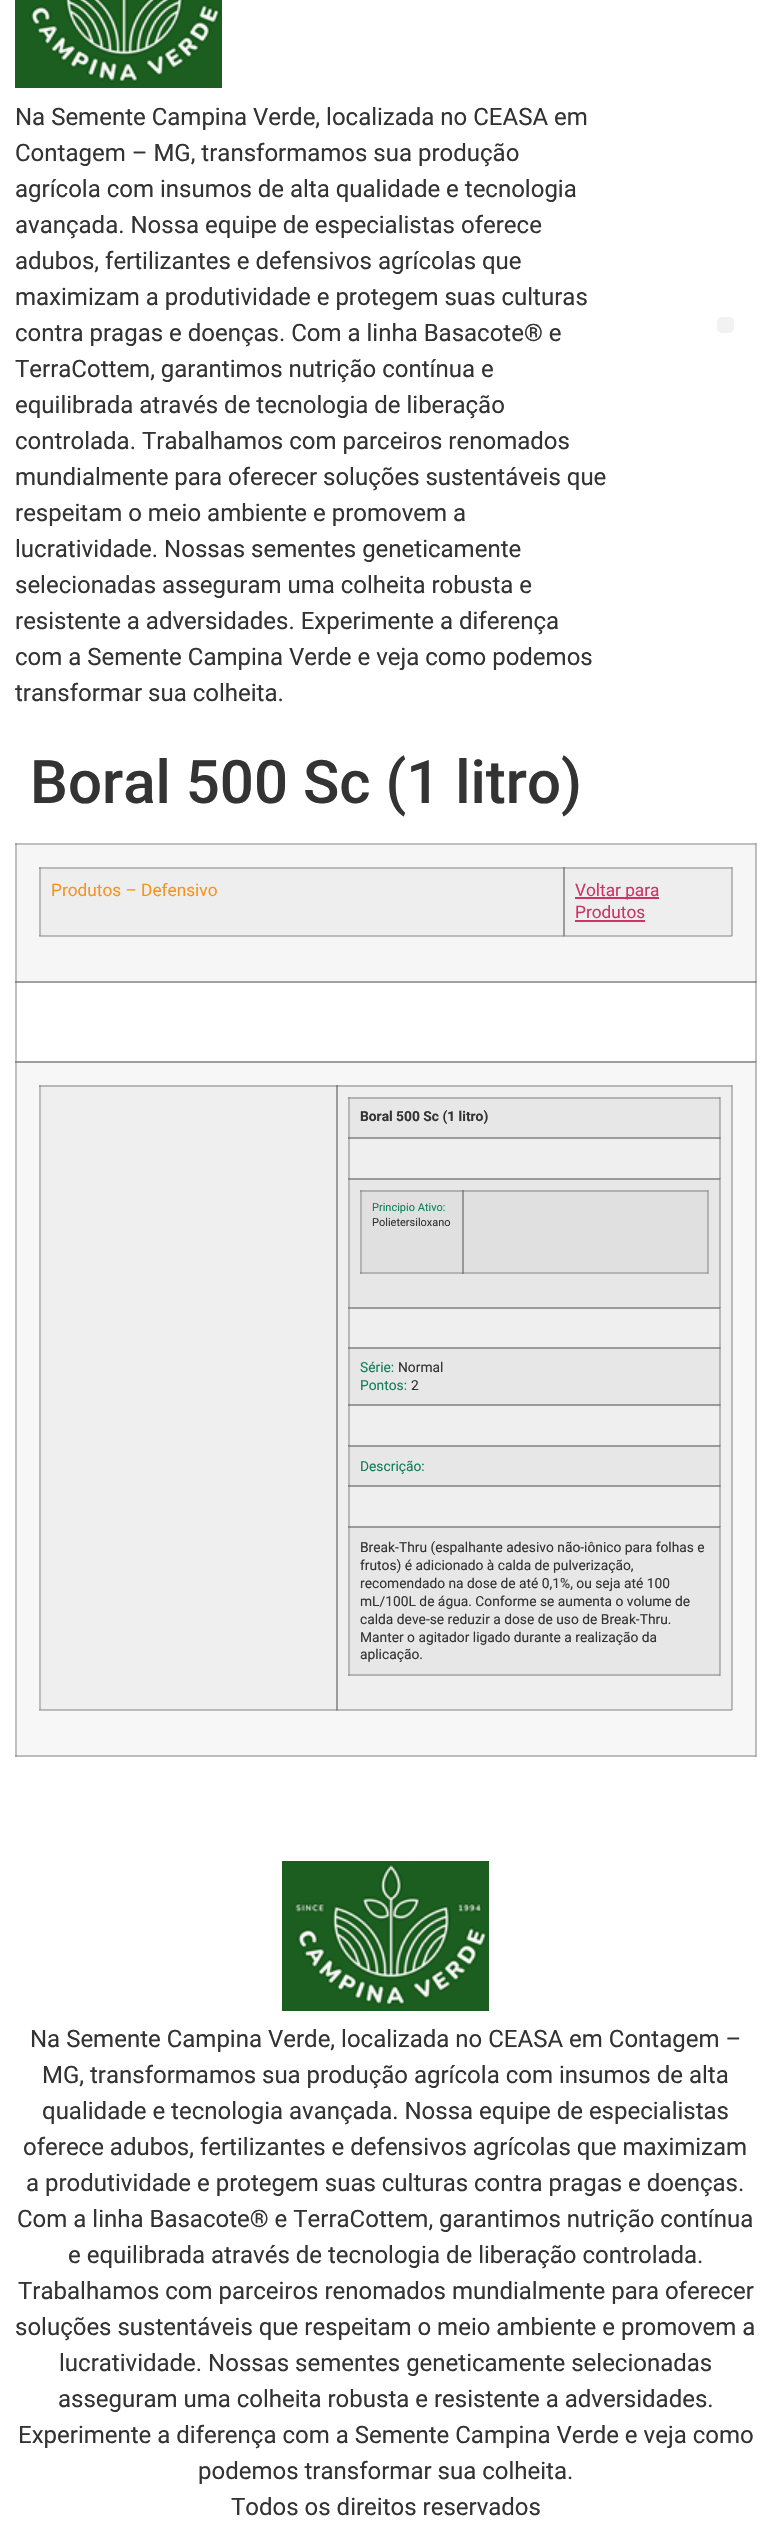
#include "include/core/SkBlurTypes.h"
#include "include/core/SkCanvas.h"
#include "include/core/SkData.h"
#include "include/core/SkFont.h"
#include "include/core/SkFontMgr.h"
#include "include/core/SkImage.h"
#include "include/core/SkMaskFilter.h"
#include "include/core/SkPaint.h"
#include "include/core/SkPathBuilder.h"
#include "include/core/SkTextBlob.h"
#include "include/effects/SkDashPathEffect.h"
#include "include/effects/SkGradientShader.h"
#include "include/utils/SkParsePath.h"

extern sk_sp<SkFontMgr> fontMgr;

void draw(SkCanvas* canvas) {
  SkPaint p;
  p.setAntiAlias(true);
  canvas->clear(SK_ColorWHITE);
  p.setColor(SkColorSetRGB(192, 192, 192));
  canvas->drawRect(SkRect::MakeLTRB(15, 843, 17, 1757), p);
  canvas->drawRect(SkRect::MakeLTRB(756, 843, 757, 983), p);
  canvas->drawRect(SkRect::MakeLTRB(755, 981, 757, 1062), p);
  p.setColor(SkColorSetRGB(160, 160, 160));
  canvas->drawRect(SkRect::MakeLTRB(15, 981, 757, 983), p);
  canvas->drawRect(SkRect::MakeLTRB(15, 1755, 17, 1757), p);
  p.setColor(SkColorSetRGB(192, 192, 192));
  canvas->drawRect(SkRect::MakeLTRB(756, 1061, 757, 1757), p);
  p.setColor(SkColorSetRGB(160, 160, 160));
  canvas->drawRect(SkRect::MakeLTRB(755, 1061, 757, 1062), p);
  p.setColor(SkColorSetRGB(144, 144, 144));
  canvas->drawRect(SkRect::MakeLTRB(15, 1062, 17, 1063), p);
  p.setColor(SkColorSetRGB(136, 136, 136));
  canvas->drawRect(SkRect::MakeLTRB(15, 1061, 17, 1062), p);
  canvas->drawImageRect(SkImages::DeferredFromEncodedData(SkData::MakeFromFileName("images/1.png")), SkRect::MakeLTRB(15, 0, 222, 88), SkSamplingOptions());
  p.setColor(SkColorSetRGB(242, 242, 242));
  canvas->drawRoundRect(SkRect::MakeLTRB(717, 317, 734, 333), 5, 5, p);
  p.setColor(SkColorSetRGB(246, 246, 246));
  canvas->drawRect(SkRect::MakeLTRB(17, 845, 755, 981), p);
  p.setColor(SkColorSetRGB(187, 187, 187));
  canvas->drawRect(SkRect::MakeLTRB(755, 845, 756, 981), p);
  canvas->drawRect(SkRect::MakeLTRB(39, 867, 41, 936), p);
  canvas->drawRect(SkRect::MakeLTRB(39, 935, 732, 937), p);
  p.setColor(SkColorSetRGB(158, 158, 158));
  canvas->drawRect(SkRect::MakeLTRB(39, 935, 41, 936), p);
  p.setColor(SkColorSetRGB(187, 187, 187));
  canvas->drawRect(SkRect::MakeLTRB(39, 867, 732, 869), p);
  p.setColor(SkColorSetRGB(158, 158, 158));
  canvas->drawRect(SkRect::MakeLTRB(39, 867, 41, 869), p);
  canvas->drawRect(SkRect::MakeLTRB(563, 935, 564, 937), p);
  p.setColor(SkColorSetRGB(143, 143, 143));
  canvas->drawRect(SkRect::MakeLTRB(563, 935, 565, 936), p);
  p.setColor(SkColorSetRGB(136, 136, 136));
  canvas->drawRect(SkRect::MakeLTRB(563, 935, 564, 936), p);
  p.setColor(SkColorSetRGB(187, 187, 187));
  canvas->drawRect(SkRect::MakeLTRB(732, 867, 733, 936), p);
  p.setColor(SkColorSetRGB(158, 158, 158));
  canvas->drawRect(SkRect::MakeLTRB(731, 935, 732, 936), p);
  p.setColor(SkColorSetRGB(192, 192, 192));
  canvas->drawRect(SkRect::MakeLTRB(15, 843, 756, 845), p);
  p.setColor(SkColorSetRGB(160, 160, 160));
  canvas->drawRect(SkRect::MakeLTRB(15, 843, 17, 845), p);
  canvas->drawRect(SkRect::MakeLTRB(755, 843, 756, 845), p);
  p.setColor(SkColorSetRGB(238, 238, 238));
  canvas->drawRect(SkRect::MakeLTRB(41, 869, 563, 935), p);
  p.setColor(SkColorSetRGB(156, 156, 156));
  canvas->drawRect(SkRect::MakeLTRB(563, 869, 565, 935), p);
  p.setColor(SkColorSetRGB(238, 238, 238));
  canvas->drawRect(SkRect::MakeLTRB(565, 869, 731, 935), p);
  p.setColor(SkColorSetRGB(183, 183, 183));
  canvas->drawRect(SkRect::MakeLTRB(731, 869, 732, 935), p);
  p.setColor(SkColorSetRGB(143, 143, 143));
  canvas->drawRect(SkRect::MakeLTRB(563, 867, 565, 869), p);
  p.setColor(SkColorSetRGB(136, 136, 136));
  canvas->drawRect(SkRect::MakeLTRB(563, 867, 564, 869), p);
  p.setColor(SkColorSetRGB(158, 158, 158));
  canvas->drawRect(SkRect::MakeLTRB(731, 867, 732, 869), p);
  p.setColor(SkColorSetRGB(204, 51, 102));
  canvas->drawRect(SkRect::MakeLTRB(575, 897, 659, 899), p);
  canvas->drawRect(SkRect::MakeLTRB(575, 920, 645, 922), p);
  p.setColor(SkColorSetRGB(136, 136, 136));
  canvas->drawRect(SkRect::MakeLTRB(15, 981, 17, 983), p);
  canvas->drawRect(SkRect::MakeLTRB(755, 981, 756, 983), p);
  p.setColor(SkColorSetRGB(247, 247, 247));
  canvas->drawRect(SkRect::MakeLTRB(17, 1063, 755, 1755), p);
  p.setColor(SkColorSetRGB(188, 188, 188));
  canvas->drawRect(SkRect::MakeLTRB(17, 1755, 756, 1757), p);
  canvas->drawRect(SkRect::MakeLTRB(755, 1061, 756, 1757), p);
  p.setColor(SkColorSetRGB(158, 158, 158));
  canvas->drawRect(SkRect::MakeLTRB(755, 1755, 756, 1757), p);
  canvas->drawRect(SkRect::MakeLTRB(17, 1061, 756, 1063), p);
  p.setColor(SkColorSetRGB(143, 143, 143));
  canvas->drawRect(SkRect::MakeLTRB(755, 1061, 756, 1063), p);
  p.setColor(SkColorSetRGB(136, 136, 136));
  canvas->drawRect(SkRect::MakeLTRB(755, 1061, 756, 1062), p);
  p.setColor(SkColorSetRGB(188, 188, 188));
  canvas->drawRect(SkRect::MakeLTRB(39, 1085, 41, 1710), p);
  canvas->drawRect(SkRect::MakeLTRB(39, 1710, 732, 1711), p);
  p.setColor(SkColorSetRGB(158, 158, 158));
  canvas->drawRect(SkRect::MakeLTRB(39, 1709, 41, 1710), p);
  canvas->drawRect(SkRect::MakeLTRB(39, 1085, 41, 1087), p);
  canvas->drawRect(SkRect::MakeLTRB(336, 1710, 338, 1711), p);
  p.setColor(SkColorSetRGB(188, 188, 188));
  canvas->drawRect(SkRect::MakeLTRB(732, 1085, 733, 1710), p);
  p.setColor(SkColorSetRGB(239, 239, 239));
  canvas->drawRect(SkRect::MakeLTRB(41, 1087, 336, 1709), p);
  p.setColor(SkColorSetRGB(184, 184, 184));
  canvas->drawRect(SkRect::MakeLTRB(41, 1709, 732, 1710), p);
  canvas->drawRect(SkRect::MakeLTRB(41, 1085, 338, 1087), p);
  p.setColor(SkColorSetRGB(156, 156, 156));
  canvas->drawRect(SkRect::MakeLTRB(336, 1085, 338, 1710), p);
  p.setColor(SkColorSetRGB(135, 135, 135));
  canvas->drawRect(SkRect::MakeLTRB(336, 1709, 338, 1710), p);
  p.setColor(SkColorSetRGB(239, 239, 239));
  canvas->drawRect(SkRect::MakeLTRB(338, 1087, 731, 1709), p);
  p.setColor(SkColorSetRGB(184, 184, 184));
  canvas->drawRect(SkRect::MakeLTRB(731, 1085, 732, 1710), p);
  p.setColor(SkColorSetRGB(156, 156, 156));
  canvas->drawRect(SkRect::MakeLTRB(731, 1709, 732, 1710), p);
  p.setColor(SkColorSetRGB(184, 184, 184));
  canvas->drawRect(SkRect::MakeLTRB(348, 1097, 350, 1676), p);
  canvas->drawRect(SkRect::MakeLTRB(720, 1097, 721, 1139), p);
  p.setColor(SkColorSetRGB(156, 156, 156));
  canvas->drawRect(SkRect::MakeLTRB(348, 1097, 350, 1099), p);
  p.setColor(SkColorSetRGB(184, 184, 184));
  canvas->drawRect(SkRect::MakeLTRB(719, 1137, 721, 1179), p);
  p.setColor(SkColorSetRGB(156, 156, 156));
  canvas->drawRect(SkRect::MakeLTRB(348, 1137, 721, 1139), p);
  p.setColor(SkColorSetRGB(184, 184, 184));
  canvas->drawRect(SkRect::MakeLTRB(720, 1178, 721, 1308), p);
  p.setColor(SkColorSetRGB(156, 156, 156));
  canvas->drawRect(SkRect::MakeLTRB(719, 1178, 721, 1179), p);
  p.setColor(SkColorSetRGB(142, 142, 142));
  canvas->drawRect(SkRect::MakeLTRB(348, 1179, 350, 1180), p);
  p.setColor(SkColorSetRGB(135, 135, 135));
  canvas->drawRect(SkRect::MakeLTRB(348, 1178, 350, 1179), p);
  p.setColor(SkColorSetRGB(184, 184, 184));
  canvas->drawRect(SkRect::MakeLTRB(719, 1307, 721, 1349), p);
  p.setColor(SkColorSetRGB(156, 156, 156));
  canvas->drawRect(SkRect::MakeLTRB(719, 1307, 721, 1308), p);
  p.setColor(SkColorSetRGB(184, 184, 184));
  canvas->drawRect(SkRect::MakeLTRB(720, 1347, 721, 1406), p);
  p.setColor(SkColorSetRGB(156, 156, 156));
  canvas->drawRect(SkRect::MakeLTRB(719, 1347, 721, 1349), p);
  p.setColor(SkColorSetRGB(135, 135, 135));
  canvas->drawRect(SkRect::MakeLTRB(348, 1347, 350, 1349), p);
  p.setColor(SkColorSetRGB(184, 184, 184));
  canvas->drawRect(SkRect::MakeLTRB(719, 1404, 721, 1446), p);
  p.setColor(SkColorSetRGB(156, 156, 156));
  canvas->drawRect(SkRect::MakeLTRB(719, 1404, 721, 1406), p);
  p.setColor(SkColorSetRGB(135, 135, 135));
  canvas->drawRect(SkRect::MakeLTRB(348, 1404, 350, 1406), p);
  p.setColor(SkColorSetRGB(184, 184, 184));
  canvas->drawRect(SkRect::MakeLTRB(720, 1445, 721, 1487), p);
  p.setColor(SkColorSetRGB(156, 156, 156));
  canvas->drawRect(SkRect::MakeLTRB(348, 1445, 721, 1446), p);
  p.setColor(SkColorSetRGB(142, 142, 142));
  canvas->drawRect(SkRect::MakeLTRB(348, 1446, 350, 1447), p);
  p.setColor(SkColorSetRGB(135, 135, 135));
  canvas->drawRect(SkRect::MakeLTRB(348, 1445, 350, 1446), p);
  canvas->drawRect(SkRect::MakeLTRB(719, 1445, 720, 1446), p);
  p.setColor(SkColorSetRGB(184, 184, 184));
  canvas->drawRect(SkRect::MakeLTRB(719, 1485, 721, 1527), p);
  p.setColor(SkColorSetRGB(156, 156, 156));
  canvas->drawRect(SkRect::MakeLTRB(719, 1485, 721, 1487), p);
  p.setColor(SkColorSetRGB(135, 135, 135));
  canvas->drawRect(SkRect::MakeLTRB(348, 1485, 350, 1487), p);
  p.setColor(SkColorSetRGB(156, 156, 156));
  canvas->drawRect(SkRect::MakeLTRB(348, 1674, 350, 1676), p);
  p.setColor(SkColorSetRGB(184, 184, 184));
  canvas->drawRect(SkRect::MakeLTRB(720, 1526, 721, 1676), p);
  p.setColor(SkColorSetRGB(156, 156, 156));
  canvas->drawRect(SkRect::MakeLTRB(348, 1526, 721, 1527), p);
  p.setColor(SkColorSetRGB(142, 142, 142));
  canvas->drawRect(SkRect::MakeLTRB(348, 1527, 350, 1528), p);
  p.setColor(SkColorSetRGB(135, 135, 135));
  canvas->drawRect(SkRect::MakeLTRB(348, 1526, 350, 1527), p);
  canvas->drawRect(SkRect::MakeLTRB(719, 1526, 720, 1527), p);
  p.setColor(SkColorSetRGB(184, 184, 184));
  canvas->drawRect(SkRect::MakeLTRB(336, 1085, 732, 1087), p);
  p.setColor(SkColorSetRGB(135, 135, 135));
  canvas->drawRect(SkRect::MakeLTRB(336, 1085, 338, 1087), p);
  p.setColor(SkColorSetRGB(156, 156, 156));
  canvas->drawRect(SkRect::MakeLTRB(731, 1085, 732, 1087), p);
  p.setColor(SkColorSetRGB(231, 231, 231));
  canvas->drawRect(SkRect::MakeLTRB(350, 1099, 719, 1137), p);
  p.setColor(SkColorSetRGB(180, 180, 180));
  canvas->drawRect(SkRect::MakeLTRB(719, 1097, 720, 1137), p);
  canvas->drawRect(SkRect::MakeLTRB(350, 1097, 720, 1099), p);
  p.setColor(SkColorSetRGB(154, 154, 154));
  canvas->drawRect(SkRect::MakeLTRB(719, 1097, 720, 1099), p);
  p.setColor(SkColorSetRGB(135, 135, 135));
  canvas->drawRect(SkRect::MakeLTRB(348, 1137, 350, 1139), p);
  canvas->drawRect(SkRect::MakeLTRB(719, 1137, 720, 1139), p);
  p.setColor(SkColorSetRGB(231, 231, 231));
  canvas->drawRect(SkRect::MakeLTRB(350, 1180, 719, 1307), p);
  p.setColor(SkColorSetRGB(180, 180, 180));
  canvas->drawRect(SkRect::MakeLTRB(719, 1178, 720, 1307), p);
  p.setColor(SkColorSetRGB(154, 154, 154));
  canvas->drawRect(SkRect::MakeLTRB(350, 1178, 720, 1180), p);
  p.setColor(SkColorSetRGB(141, 141, 141));
  canvas->drawRect(SkRect::MakeLTRB(719, 1178, 720, 1180), p);
  p.setColor(SkColorSetRGB(135, 135, 135));
  canvas->drawRect(SkRect::MakeLTRB(719, 1178, 720, 1179), p);
  p.setColor(SkColorSetRGB(180, 180, 180));
  canvas->drawRect(SkRect::MakeLTRB(360, 1190, 362, 1274), p);
  canvas->drawRect(SkRect::MakeLTRB(360, 1272, 708, 1274), p);
  p.setColor(SkColorSetRGB(154, 154, 154));
  canvas->drawRect(SkRect::MakeLTRB(360, 1272, 362, 1274), p);
  canvas->drawRect(SkRect::MakeLTRB(360, 1190, 362, 1192), p);
  p.setColor(SkColorSetRGB(135, 135, 135));
  canvas->drawRect(SkRect::MakeLTRB(462, 1272, 464, 1274), p);
  p.setColor(SkColorSetRGB(180, 180, 180));
  canvas->drawRect(SkRect::MakeLTRB(708, 1190, 709, 1274), p);
  p.setColor(SkColorSetRGB(154, 154, 154));
  canvas->drawRect(SkRect::MakeLTRB(707, 1272, 708, 1274), p);
  p.setColor(SkColorSetRGB(224, 224, 224));
  canvas->drawRect(SkRect::MakeLTRB(362, 1192, 462, 1272), p);
  p.setColor(SkColorSetRGB(176, 176, 176));
  canvas->drawRect(SkRect::MakeLTRB(362, 1190, 462, 1192), p);
  p.setColor(SkColorSetRGB(224, 224, 224));
  canvas->drawRect(SkRect::MakeLTRB(464, 1192, 707, 1272), p);
  p.setColor(SkColorSetRGB(152, 152, 152));
  canvas->drawRect(SkRect::MakeLTRB(462, 1190, 464, 1272), p);
  p.setColor(SkColorSetRGB(176, 176, 176));
  canvas->drawRect(SkRect::MakeLTRB(707, 1190, 708, 1272), p);
  canvas->drawRect(SkRect::MakeLTRB(462, 1190, 708, 1192), p);
  p.setColor(SkColorSetRGB(134, 134, 134));
  canvas->drawRect(SkRect::MakeLTRB(462, 1190, 464, 1192), p);
  p.setColor(SkColorSetRGB(152, 152, 152));
  canvas->drawRect(SkRect::MakeLTRB(707, 1190, 708, 1192), p);
  p.setColor(SkColorSetRGB(156, 156, 156));
  canvas->drawRect(SkRect::MakeLTRB(348, 1307, 720, 1309), p);
  p.setColor(SkColorSetRGB(142, 142, 142));
  canvas->drawRect(SkRect::MakeLTRB(348, 1308, 350, 1309), p);
  p.setColor(SkColorSetRGB(135, 135, 135));
  canvas->drawRect(SkRect::MakeLTRB(348, 1307, 350, 1308), p);
  p.setColor(SkColorSetRGB(142, 142, 142));
  canvas->drawRect(SkRect::MakeLTRB(719, 1307, 720, 1309), p);
  p.setColor(SkColorSetRGB(135, 135, 135));
  canvas->drawRect(SkRect::MakeLTRB(719, 1307, 720, 1308), p);
  p.setColor(SkColorSetRGB(231, 231, 231));
  canvas->drawRect(SkRect::MakeLTRB(350, 1349, 719, 1404), p);
  p.setColor(SkColorSetRGB(180, 180, 180));
  canvas->drawRect(SkRect::MakeLTRB(719, 1347, 720, 1406), p);
  p.setColor(SkColorSetRGB(154, 154, 154));
  canvas->drawRect(SkRect::MakeLTRB(350, 1347, 720, 1349), p);
  p.setColor(SkColorSetRGB(135, 135, 135));
  canvas->drawRect(SkRect::MakeLTRB(719, 1347, 720, 1349), p);
  p.setColor(SkColorSetRGB(154, 154, 154));
  canvas->drawRect(SkRect::MakeLTRB(350, 1404, 720, 1406), p);
  p.setColor(SkColorSetRGB(135, 135, 135));
  canvas->drawRect(SkRect::MakeLTRB(719, 1404, 720, 1406), p);
  p.setColor(SkColorSetRGB(231, 231, 231));
  canvas->drawRect(SkRect::MakeLTRB(350, 1447, 719, 1485), p);
  p.setColor(SkColorSetRGB(180, 180, 180));
  canvas->drawRect(SkRect::MakeLTRB(719, 1446, 720, 1487), p);
  p.setColor(SkColorSetRGB(154, 154, 154));
  canvas->drawRect(SkRect::MakeLTRB(350, 1446, 720, 1447), p);
  p.setColor(SkColorSetRGB(141, 141, 141));
  canvas->drawRect(SkRect::MakeLTRB(719, 1446, 720, 1447), p);
  p.setColor(SkColorSetRGB(154, 154, 154));
  canvas->drawRect(SkRect::MakeLTRB(350, 1485, 720, 1487), p);
  p.setColor(SkColorSetRGB(135, 135, 135));
  canvas->drawRect(SkRect::MakeLTRB(719, 1485, 720, 1487), p);
  p.setColor(SkColorSetRGB(231, 231, 231));
  canvas->drawRect(SkRect::MakeLTRB(350, 1528, 719, 1674), p);
  p.setColor(SkColorSetRGB(180, 180, 180));
  canvas->drawRect(SkRect::MakeLTRB(350, 1674, 720, 1676), p);
  canvas->drawRect(SkRect::MakeLTRB(719, 1527, 720, 1676), p);
  p.setColor(SkColorSetRGB(154, 154, 154));
  canvas->drawRect(SkRect::MakeLTRB(719, 1674, 720, 1676), p);
  canvas->drawRect(SkRect::MakeLTRB(350, 1527, 720, 1528), p);
  p.setColor(SkColorSetRGB(141, 141, 141));
  canvas->drawRect(SkRect::MakeLTRB(719, 1527, 720, 1528), p);
  canvas->drawImageRect(SkImages::DeferredFromEncodedData(SkData::MakeFromFileName("images/2.png")), SkRect::MakeLTRB(282, 1861, 489, 2011), SkSamplingOptions());
  SkFont font1(fontMgr->matchFamilyStyle("Roboto", SkFontStyle::Normal()), 24);
  font1.setSubpixel(true);
  p.setColor(SkColorSetRGB(51, 51, 51));
  canvas->drawString("Na Semente Campina Verde, localizada no CEASA em", 15, 125, font1, p);
  canvas->drawString("Contagem – MG, transformamos sua produção", 15, 161, font1, p);
  canvas->drawString("agrícola com insumos de alta qualidade e tecnologia", 15, 197, font1, p);
  canvas->drawString("avançada. Nossa equipe de especialistas oferece", 15, 233, font1, p);
  canvas->drawString("adubos, fertilizantes e defensivos agrícolas que", 15, 269, font1, p);
  canvas->drawString("maximizam a produtividade e protegem suas culturas", 15, 305, font1, p);
  canvas->drawString("contra pragas e doenças. Com a linha Basacote® e", 15, 341, font1, p);
  canvas->drawString("TerraCottem, garantimos nutrição contínua e", 15, 377, font1, p);
  canvas->drawString("equilibrada através de tecnologia de liberação", 15, 413, font1, p);
  canvas->drawString("controlada. Trabalhamos com parceiros renomados", 15, 449, font1, p);
  canvas->drawString("mundialmente para oferecer soluções sustentáveis que", 15, 485, font1, p);
  canvas->drawString("respeitam o meio ambiente e promovem a", 15, 521, font1, p);
  canvas->drawString("lucratividade. Nossas sementes geneticamente", 15, 557, font1, p);
  canvas->drawString("selecionadas asseguram uma colheita robusta e", 15, 593, font1, p);
  canvas->drawString("resistente a adversidades. Experimente a diferença", 15, 629, font1, p);
  canvas->drawString("com a Semente Campina Verde e veja como podemos", 15, 665, font1, p);
  canvas->drawString("transformar sua colheita.", 15, 701, font1, p);
  SkFont font2(fontMgr->matchFamilyStyle("Roboto", SkFontStyle(500, SkFontStyle::kNormal_Width, SkFontStyle::kUpright_Slant)), 60);
  font2.setSubpixel(true);
  canvas->drawString("Boral 500 Sc (1 litro)", 30, 803, font2, p);
  SkFont font3(fontMgr->matchFamilyStyle("Roboto", SkFontStyle::Normal()), 17.25f);
  font3.setSubpixel(true);
  p.setColor(SkColorSetRGB(248, 148, 29));
  canvas->drawString("Produtos – Defensivo", 51, 896, font3, p);
  p.setColor(SkColorSetRGB(204, 51, 102));
  canvas->drawString("Voltar para", 575, 896, font3, p);
  canvas->drawString("Produtos", 575, 918, font3, p);
  SkFont font4(fontMgr->matchFamilyStyle("Roboto", SkFontStyle::Bold()), 13.8f);
  font4.setSubpixel(true);
  p.setColor(SkColorSetRGB(51, 51, 51));
  canvas->drawString("Boral 500 Sc (1 litro)", 360, 1121, font4, p);
  SkFont font5(fontMgr->matchFamilyStyle("Roboto", SkFontStyle::Normal()), 11);
  font5.setSubpixel(true);
  p.setColor(SkColorSetRGB(20, 126, 91));
  canvas->drawString("Principio Ativo:", 372, 1211, font5, p);
  p.setColor(SkColorSetRGB(51, 51, 51));
  canvas->drawString("Polietersiloxano", 372, 1226, font5, p);
  SkFont font6(fontMgr->matchFamilyStyle("Roboto", SkFontStyle::Normal()), 13.8f);
  font6.setSubpixel(true);
  p.setColor(SkColorSetRGB(20, 126, 91));
  canvas->drawString("Série:", 360, 1372, font6, p);
  p.setColor(SkColorSetRGB(51, 51, 51));
  canvas->drawString("Normal", 398, 1372, font6, p);
  p.setColor(SkColorSetRGB(20, 126, 91));
  canvas->drawString("Pontos:", 360, 1390, font6, p);
  p.setColor(SkColorSetRGB(51, 51, 51));
  canvas->drawString("2", 411, 1390, font6, p);
  p.setColor(SkColorSetRGB(20, 126, 91));
  canvas->drawString("Descrição:", 360, 1471, font6, p);
  p.setColor(SkColorSetRGB(51, 51, 51));
  canvas->drawString("Break-Thru (espalhante adesivo não-iônico para folhas e", 360, 1552, font6, p);
  canvas->drawString("frutos) é adicionado à calda de pulverização,", 360, 1570, font6, p);
  canvas->drawString("recomendado na dose de até 0,1%, ou seja até 100", 360, 1588, font6, p);
  canvas->drawString("mL/100L de água. Conforme se aumenta o volume de", 360, 1606, font6, p);
  canvas->drawString("calda deve-se reduzir a dose de uso de Break-Thru.", 360, 1624, font6, p);
  canvas->drawString("Manter o agitador ligado durante a realização da", 360, 1642, font6, p);
  canvas->drawString("aplicação.", 360, 1659, font6, p);
  canvas->drawString("Na Semente Campina Verde, localizada no CEASA em Contagem –", 30, 2047, font1, p);
  canvas->drawString("MG, transformamos sua produção agrícola com insumos de alta", 42, 2083, font1, p);
  canvas->drawString("qualidade e tecnologia avançada. Nossa equipe de especialistas", 42, 2119, font1, p);
  canvas->drawString("oferece adubos, fertilizantes e defensivos agrícolas que maximizam", 23, 2155, font1, p);
  canvas->drawString("a produtividade e protegem suas culturas contra pragas e doenças.", 26, 2191, font1, p);
  canvas->drawString("Com a linha Basacote® e TerraCottem, garantimos nutrição contínua", 17, 2227, font1, p);
  canvas->drawString("e equilibrada através de tecnologia de liberação controlada.", 68, 2263, font1, p);
  canvas->drawString("Trabalhamos com parceiros renomados mundialmente para oferecer", 18, 2299, font1, p);
  canvas->drawString("soluções sustentáveis que respeitam o meio ambiente e promovem a", 15, 2335, font1, p);
  canvas->drawString("lucratividade. Nossas sementes geneticamente selecionadas", 59, 2371, font1, p);
  canvas->drawString("asseguram uma colheita robusta e resistente a adversidades.", 58, 2407, font1, p);
  canvas->drawString("Experimente a diferença com a Semente Campina Verde e veja como", 18, 2443, font1, p);
  canvas->drawString("podemos transformar sua colheita.", 198, 2479, font1, p);
  canvas->drawString("Todos os direitos reservados", 231, 2515, font1, p);
}
